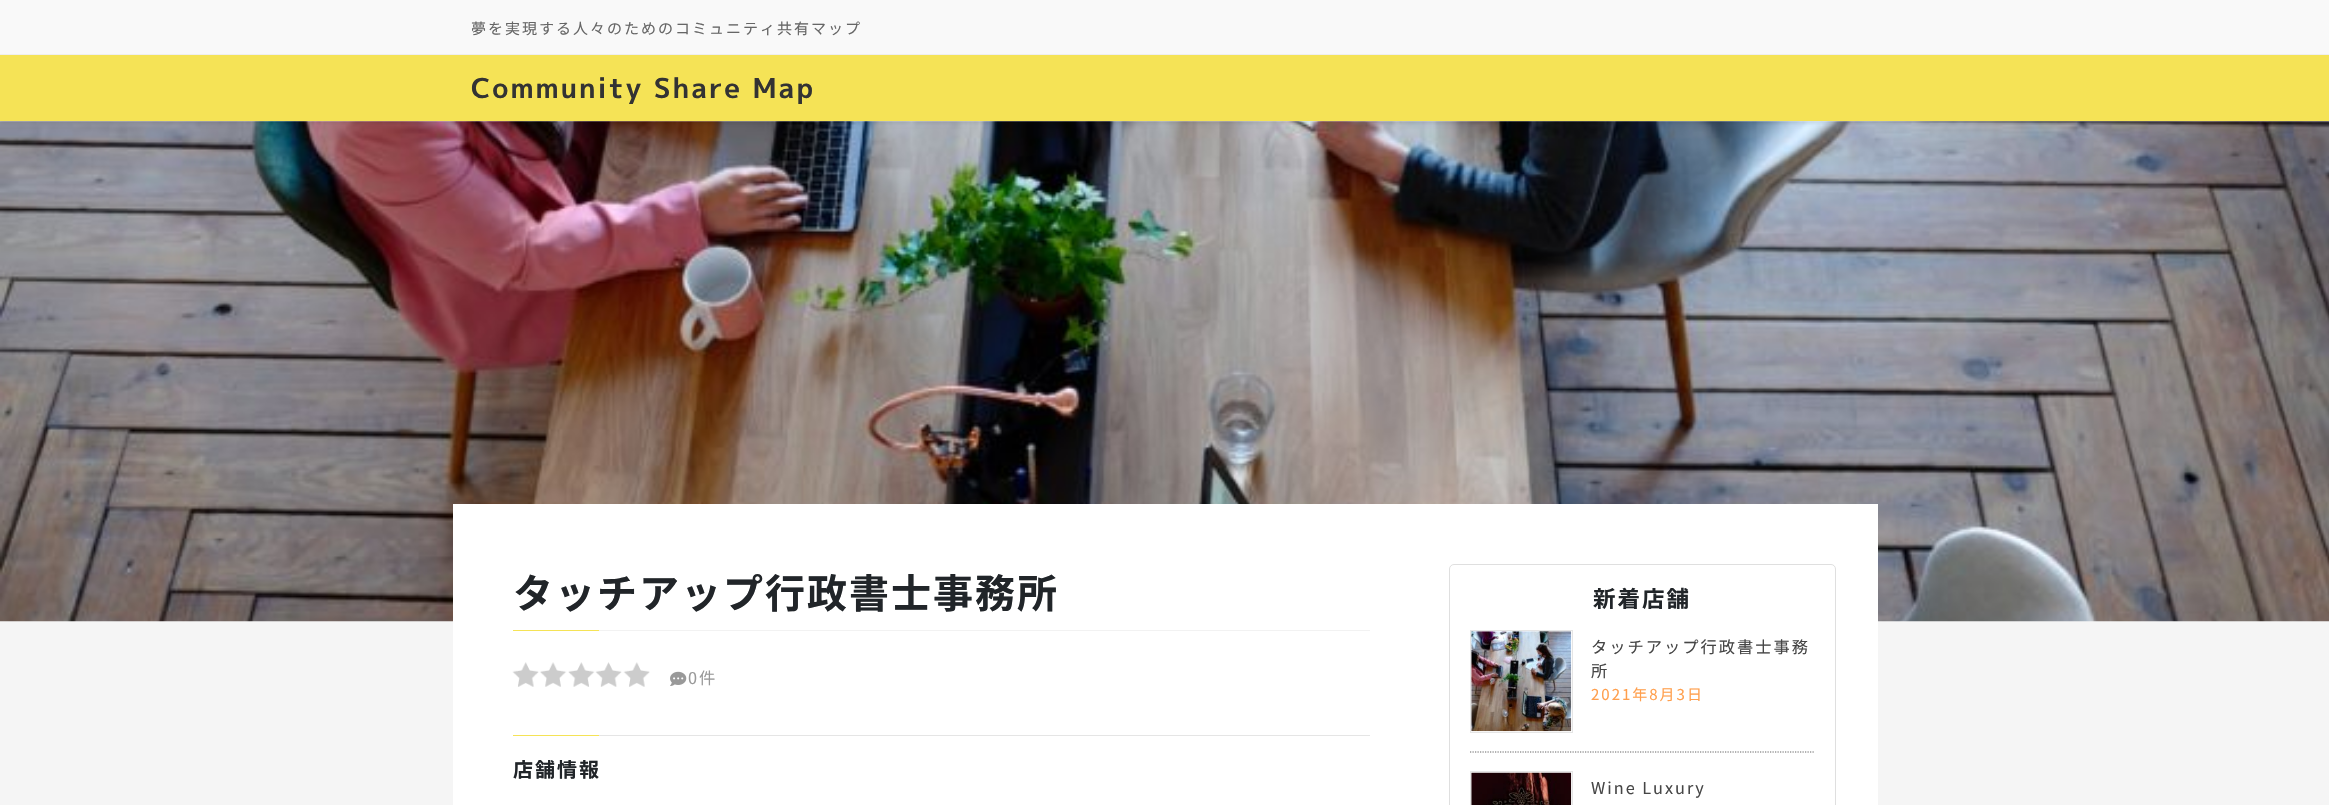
#include "include/core/SkBlurTypes.h"
#include "include/core/SkCanvas.h"
#include "include/core/SkData.h"
#include "include/core/SkFont.h"
#include "include/core/SkFontMgr.h"
#include "include/core/SkImage.h"
#include "include/core/SkMaskFilter.h"
#include "include/core/SkPaint.h"
#include "include/core/SkPathBuilder.h"
#include "include/core/SkTextBlob.h"
#include "include/effects/SkDashPathEffect.h"
#include "include/effects/SkGradientShader.h"
#include "include/utils/SkParsePath.h"

extern sk_sp<SkFontMgr> fontMgr;

void draw(SkCanvas* canvas) {
  SkPaint p;
  p.setAntiAlias(true);
  auto spacedText = [&](const char* s, float x, float y, const SkFont& font, const SkPaint& ink, float letter, float word) {
    std::vector<SkGlyphID> glyphs(font.countText(s, strlen(s), SkTextEncoding::kUTF8));
    std::vector<float> xs(glyphs.size());
    font.textToGlyphs(s, strlen(s), SkTextEncoding::kUTF8, glyphs);
    font.getXPos(glyphs, xs, x);
    float extra = 0;
    for (size_t i = 0; i < glyphs.size(); i++) {
      xs[i] += extra;
      extra += letter + word * (glyphs[i] == font.unicharToGlyph(' '));
    }
    canvas->drawTextBlob(SkTextBlob::MakeFromPosHGlyphs(glyphs, xs, y, font), 0, 0, ink);
  };
  canvas->clear(SK_ColorWHITE);
  p.setColor(SkColorSetRGB(245, 245, 245));
  canvas->drawRect(SkRect::MakeLTRB(0, 621, 2329, 805), p);
  canvas->drawImageRect(SkImages::DeferredFromEncodedData(SkData::MakeFromFileName("images/1.png")), SkRect::MakeLTRB(0, 121, 2329, 622), SkSamplingOptions());
  p.setColor(SkColorSetARGB(26, 0, 0, 0));
  p.setMaskFilter(SkMaskFilter::MakeBlur(kNormal_SkBlurStyle, 2));
  canvas->drawRect(SkRect::MakeLTRB(0, -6, 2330, 123), p);
  p.setMaskFilter(nullptr);
  p.setColor(SkColorSetRGB(245, 227, 86));
  canvas->drawRect(SkRect::MakeLTRB(0, 55, 2329, 121), p);
  p.setColor(SkColorSetRGB(249, 249, 249));
  canvas->drawRect(SkRect::MakeLTRB(0, 0, 2329, 54), p);
  p.setColor(SkColorSetRGB(239, 239, 239));
  canvas->drawRect(SkRect::MakeLTRB(0, 54, 2329, 55), p);
  p.setColor(SK_ColorWHITE);
  canvas->drawRect(SkRect::MakeLTRB(453, 504, 1878, 805), p);
  p.setColor(SkColorSetRGB(242, 242, 242));
  canvas->drawRect(SkRect::MakeLTRB(599, 630, 1370, 631), p);
  p.setColor(SkColorSetRGB(245, 227, 86));
  canvas->drawRect(SkRect::MakeLTRB(513, 630, 599, 631), p);
  canvas->drawImageRect(SkImages::DeferredFromEncodedData(SkData::MakeFromFileName("images/2.png")), SkRect::MakeLTRB(512, 662, 650, 687), SkSamplingOptions());
  canvas->drawImageRect(SkImages::DeferredFromEncodedData(SkData::MakeFromFileName("images/3.png")), SkRect::MakeLTRB(670, 671, 687, 686), SkSamplingOptions());
  p.setColor(SkColorSetRGB(229, 229, 229));
  canvas->drawRect(SkRect::MakeLTRB(599, 735, 1370, 736), p);
  p.setColor(SkColorSetRGB(245, 227, 86));
  canvas->drawRect(SkRect::MakeLTRB(513, 735, 599, 736), p);
  p.setStyle(SkPaint::kStroke_Style);
  p.setStrokeWidth(1);
  p.setColor(SkColorSetRGB(223, 223, 223));
  canvas->drawRoundRect(SkRect::MakeLTRB(1449.5f, 564.5f, 1835.5f, 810.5f), 4.5f, 4.5f, p);
  p.setStrokeWidth(1.2f);
  p.setColor(SkColorSetRGB(102, 102, 102));
  p.setPathEffect(SkDashPathEffect::Make({{1.25f, 1.25f}}, 0));
  canvas->drawPath(SkPathBuilder().moveTo(1470, 752).lineTo(1815, 752).detach(), p);
  p.setPathEffect(nullptr);
  p.setStrokeWidth(1);
  p.setColor(SkColorSetRGB(229, 229, 229));
  canvas->drawRect(SkRect::MakeLTRB(1470.5f, 630.5f, 1572.5f, 732.5f), p);
  canvas->drawImageRect(SkImages::DeferredFromEncodedData(SkData::MakeFromFileName("images/4.png")), SkRect::MakeLTRB(1471, 631, 1572, 732), SkSamplingOptions());
  canvas->drawRect(SkRect::MakeLTRB(1470.5f, 771.5f, 1572.5f, 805.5f), p);
  canvas->drawImageRect(SkImages::DeferredFromEncodedData(SkData::MakeFromFileName("images/5.png")), SkRect::MakeLTRB(1471, 772, 1572, 805), SkSamplingOptions());
  SkFont font1(fontMgr->matchFamilyStyle("Noto Sans JP", SkFontStyle::Normal()), 15);
  font1.setSubpixel(true);
  p.setStyle(SkPaint::kFill_Style);
  p.setColor(SkColorSetRGB(102, 102, 102));
  spacedText("夢を実現する人々のためのコミュニティ共有マップ", 471, 34, font1, p, 2, 0);
  SkFont font2(fontMgr->matchFamilyStyle("M PLUS 1p", SkFontStyle::Bold()), 27.5f);
  font2.setSubpixel(true);
  p.setColor(SkColorSetRGB(51, 51, 51));
  spacedText("Community Share Map", 471, 98, font2, p, 2, 0);
  SkFont font3(fontMgr->matchFamilyStyle("Noto Sans JP", SkFontStyle::Bold()), 40);
  font3.setSubpixel(true);
  p.setColor(SkColorSetRGB(33, 37, 41));
  spacedText("タッチアップ行政書士事務所", 513, 608, font3, p, 2, 0);
  SkFont font4(fontMgr->matchFamilyStyle("Noto Sans JP", SkFontStyle::Normal()), 16.25f);
  font4.setSubpixel(true);
  p.setColor(SkColorSetRGB(153, 153, 153));
  spacedText("0件", 688, 684, font4, p, 2, 0);
  SkFont font5(fontMgr->matchFamilyStyle("Noto Sans JP", SkFontStyle::Bold()), 20);
  font5.setSubpixel(true);
  p.setColor(SkColorSetRGB(33, 37, 41));
  spacedText("店舗情報", 513, 777, font5, p, 2, 0);
  SkFont font6(fontMgr->matchFamilyStyle("Noto Sans JP", SkFontStyle::Bold()), 22.5f);
  font6.setSubpixel(true);
  spacedText("新着店舗", 1593, 607, font6, p, 2, 0);
  p.setColor(SkColorSetRGB(70, 70, 70));
  spacedText("タッチアップ行政書士事務", 1591, 653, font4, p, 2, 0);
  spacedText("所", 1591, 677, font4, p, 2, 0);
  p.setColor(SkColorSetRGB(255, 159, 77));
  spacedText("2021年8月3日", 1591, 700, font1, p, 2, 0);
  p.setColor(SkColorSetRGB(70, 70, 70));
  spacedText("Wine Luxury", 1591, 794, font4, p, 2, 0);
}
